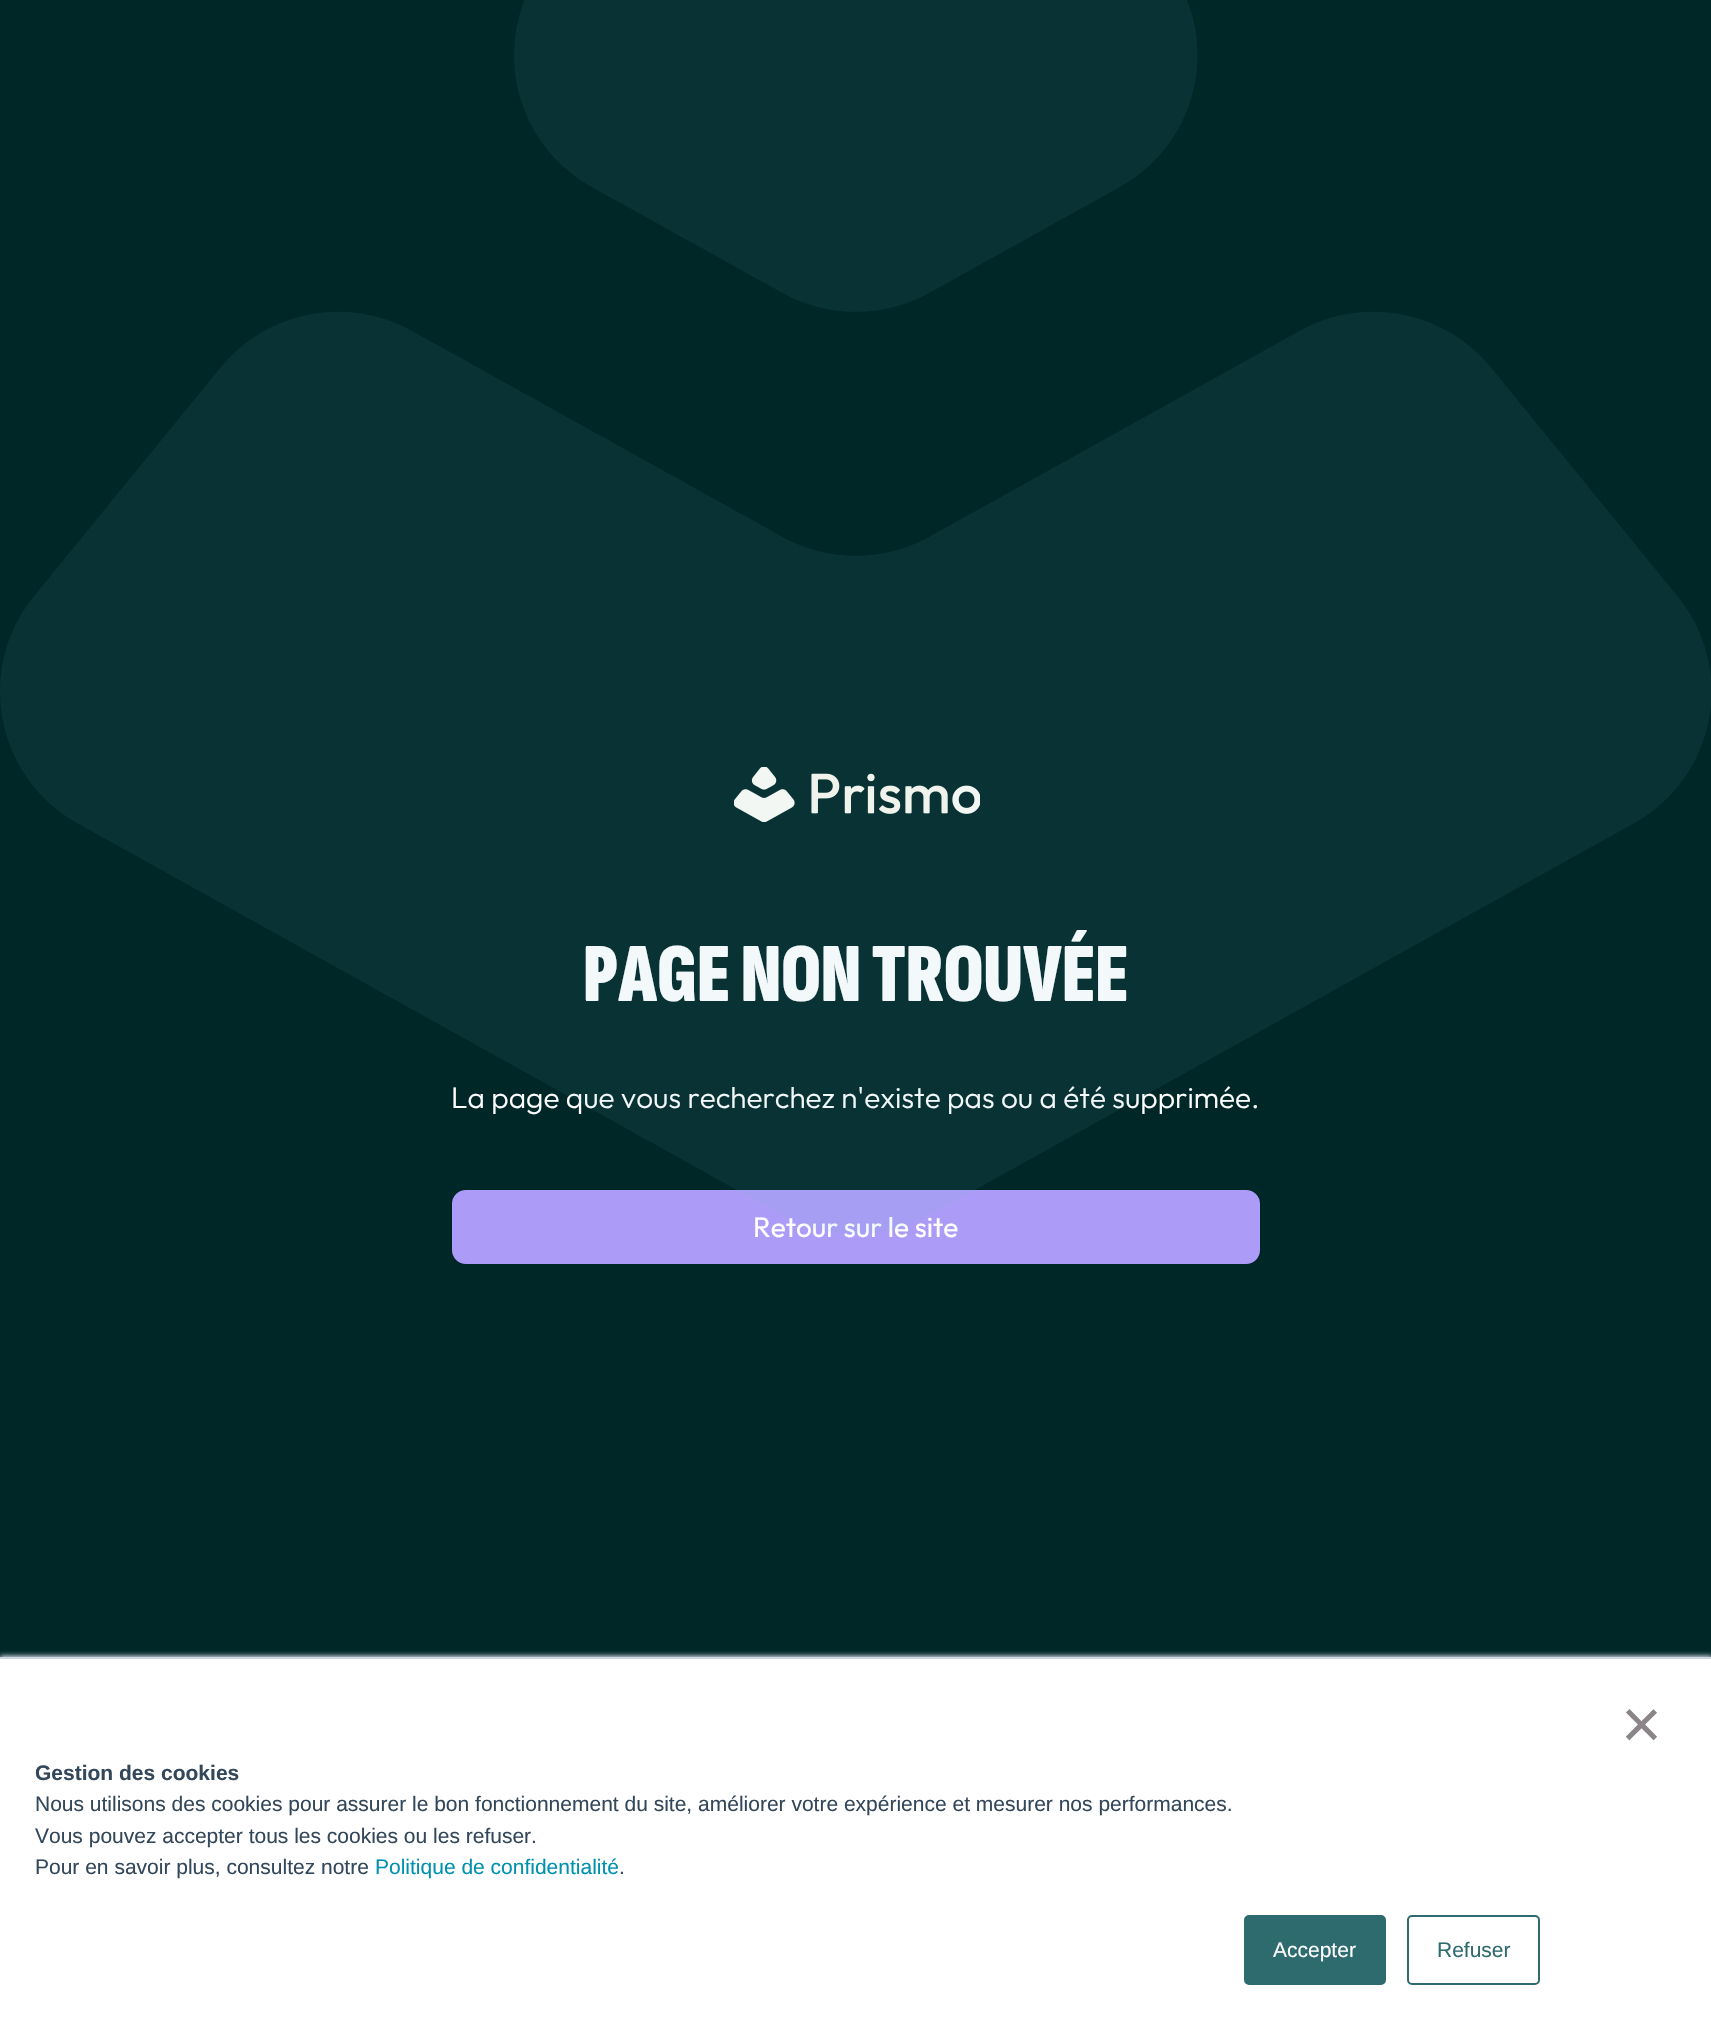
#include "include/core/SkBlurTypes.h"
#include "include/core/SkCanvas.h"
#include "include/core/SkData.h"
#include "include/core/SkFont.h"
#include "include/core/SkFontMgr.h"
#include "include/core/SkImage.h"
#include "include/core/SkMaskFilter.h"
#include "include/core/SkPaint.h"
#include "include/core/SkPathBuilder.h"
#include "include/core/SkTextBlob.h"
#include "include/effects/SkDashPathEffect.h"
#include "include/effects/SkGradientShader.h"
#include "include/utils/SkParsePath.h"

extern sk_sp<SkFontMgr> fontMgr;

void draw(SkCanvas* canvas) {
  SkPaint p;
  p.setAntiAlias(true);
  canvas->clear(SkColorSetRGB(0, 39, 40));
  canvas->drawImageRect(SkImages::DeferredFromEncodedData(SkData::MakeFromFileName("images/2.png")), SkRect::MakeLTRB(734, 767, 980, 822), SkSamplingOptions());
  p.setColor(SkColorSetRGB(172, 156, 247));
  canvas->drawRoundRect(SkRect::MakeLTRB(453, 1191, 1259, 1263), 13, 13, p);
  p.setStyle(SkPaint::kStroke_Style);
  p.setStrokeWidth(2);
  canvas->drawRoundRect(SkRect::MakeLTRB(453, 1191, 1259, 1263), 13, 13, p);
  p.setStyle(SkPaint::kFill_Style);
  p.setColor(SkColorSetRGB(234, 240, 246));
  p.setMaskFilter(SkMaskFilter::MakeBlur(kNormal_SkBlurStyle, 2.5f));
  canvas->drawRect(SkRect::MakeLTRB(0, 1656, 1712, 2028), p);
  p.setMaskFilter(nullptr);
  p.setColor(SK_ColorWHITE);
  canvas->drawRect(SkRect::MakeLTRB(0, 1659, 1711, 2030), p);
  p.setColor(SkColorSetRGB(203, 214, 226));
  canvas->drawRect(SkRect::MakeLTRB(0, 1657, 1711, 1659), p);
  p.setColor(SkColorSetRGB(46, 107, 111));
  canvas->drawRoundRect(SkRect::MakeLTRB(1245, 1916, 1385, 1984), 4, 4, p);
  p.setStyle(SkPaint::kStroke_Style);
  canvas->drawRoundRect(SkRect::MakeLTRB(1245, 1916, 1385, 1984), 4, 4, p);
  canvas->drawRoundRect(SkRect::MakeLTRB(1408, 1916, 1539, 1984), 4, 4, p);
  SkFont font1(fontMgr->matchFamilyStyle("Sofia Sans Extra Condensed", SkFontStyle(900, SkFontStyle::kNormal_Width, SkFontStyle::kUpright_Slant)), 84);
  font1.setSubpixel(true);
  p.setStyle(SkPaint::kFill_Style);
  p.setColor(SK_ColorWHITE);
  canvas->drawString("PAGE NON TROUVÉE", 583, 1001, font1, p);
  SkFont font2(fontMgr->matchFamilyStyle("Outfit", SkFontStyle(300, SkFontStyle::kNormal_Width, SkFontStyle::kUpright_Slant)), 29.75f);
  font2.setSubpixel(true);
  canvas->drawString("La page que vous recherchez n'existe pas ou a été supprimée.", 451, 1108, font2, p);
  SkFont font3(fontMgr->matchFamilyStyle("Outfit", SkFontStyle::Normal()), 28);
  font3.setSubpixel(true);
  canvas->drawString("Retour sur le site", 753, 1237, font3, p);
  canvas->drawImageRect(SkImages::DeferredFromEncodedData(SkData::MakeFromFileName("images/1.png")), SkRect::MakeLTRB(0, 0, 1711, 1234), SkSamplingOptions());
  SkFont font4(fontMgr->matchFamilyStyle("Liberation Sans", SkFontStyle::Normal()), 70);
  font4.setSubpixel(true);
  p.setColor(SkColorSetRGB(139, 133, 137));
  canvas->drawString("×", 1621, 1748, font4, p);
  SkFont font5(fontMgr->matchFamilyStyle("Liberation Sans", SkFontStyle::Bold()), 21);
  font5.setSubpixel(true);
  p.setColor(SkColorSetRGB(51, 71, 91));
  canvas->drawString("Gestion des cookies", 35, 1780, font5, p);
  SkFont font6(fontMgr->matchFamilyStyle("Liberation Sans", SkFontStyle::Normal()), 21);
  font6.setSubpixel(true);
  canvas->drawString("Nous utilisons des cookies pour assurer le bon fonctionnement du site, améliorer votre expérience et mesurer nos performances.", 35, 1811, font6, p);
  canvas->drawString("Vous pouvez accepter tous les cookies ou les refuser.", 35, 1843, font6, p);
  canvas->drawString("Pour en savoir plus, consultez notre", 35, 1874, font6, p);
  p.setColor(SkColorSetRGB(0, 145, 174));
  canvas->drawString("Politique de confidentialité", 375, 1874, font6, p);
  p.setColor(SkColorSetRGB(51, 71, 91));
  canvas->drawString(".", 619, 1874, font6, p);
  p.setColor(SK_ColorWHITE);
  canvas->drawString("Accepter", 1273, 1957, font6, p);
  p.setColor(SkColorSetRGB(46, 107, 111));
  canvas->drawString("Refuser", 1437, 1957, font6, p);
}
